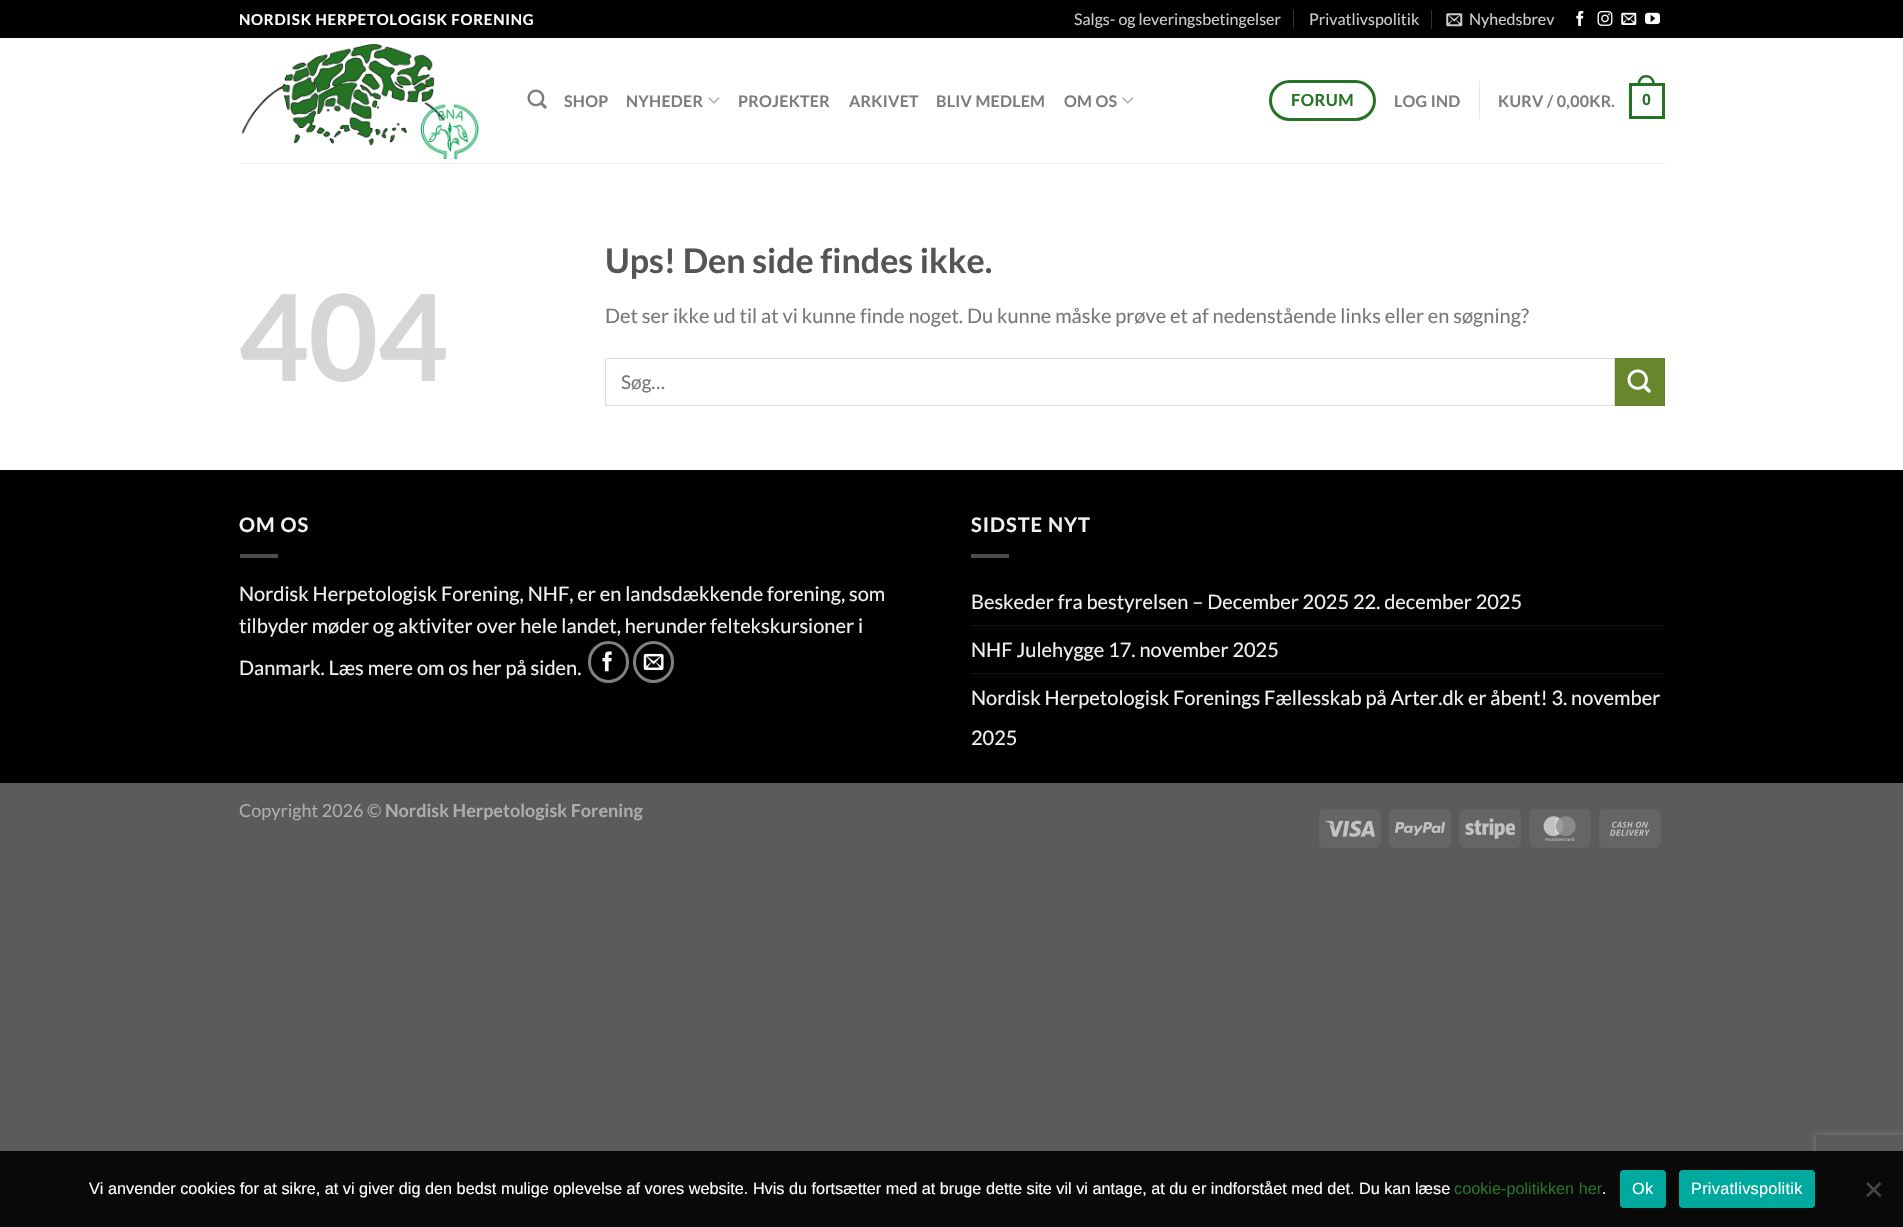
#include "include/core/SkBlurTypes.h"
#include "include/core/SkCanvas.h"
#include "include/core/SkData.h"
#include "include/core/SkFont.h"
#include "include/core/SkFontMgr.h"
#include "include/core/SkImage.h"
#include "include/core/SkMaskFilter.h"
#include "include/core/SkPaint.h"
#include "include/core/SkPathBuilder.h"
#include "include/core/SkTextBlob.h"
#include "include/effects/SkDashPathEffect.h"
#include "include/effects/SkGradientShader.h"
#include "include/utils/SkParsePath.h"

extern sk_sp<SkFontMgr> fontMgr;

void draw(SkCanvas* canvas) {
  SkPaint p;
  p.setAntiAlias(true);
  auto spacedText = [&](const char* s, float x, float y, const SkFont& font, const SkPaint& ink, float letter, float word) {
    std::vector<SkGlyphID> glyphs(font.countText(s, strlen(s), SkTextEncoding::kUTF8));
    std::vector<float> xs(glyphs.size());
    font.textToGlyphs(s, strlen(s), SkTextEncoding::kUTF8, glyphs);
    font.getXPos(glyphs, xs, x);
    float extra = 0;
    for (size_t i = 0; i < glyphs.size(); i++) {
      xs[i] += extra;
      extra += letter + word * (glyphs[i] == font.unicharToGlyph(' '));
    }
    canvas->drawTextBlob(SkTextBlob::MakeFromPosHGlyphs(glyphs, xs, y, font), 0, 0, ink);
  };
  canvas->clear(SkColorSetRGB(91, 91, 91));
  p.setColor(SK_ColorWHITE);
  canvas->drawRect(SkRect::MakeLTRB(0, 38, 1903, 470), p);
  p.setColor(SK_ColorBLACK);
  canvas->drawRect(SkRect::MakeLTRB(0, 0, 1903, 38), p);
  p.setColor(SkColorSetRGB(51, 51, 51));
  canvas->drawRect(SkRect::MakeLTRB(1293, 10, 1294, 29), p);
  canvas->drawRect(SkRect::MakeLTRB(1431, 10, 1432, 29), p);
  canvas->drawImageRect(SkImages::DeferredFromEncodedData(SkData::MakeFromFileName("images/1.png")), SkRect::MakeLTRB(1446, 13, 1463, 27), SkSamplingOptions());
  canvas->drawImageRect(SkImages::DeferredFromEncodedData(SkData::MakeFromFileName("images/2.png")), SkRect::MakeLTRB(1576, 10, 1584, 26), SkSamplingOptions());
  canvas->drawImageRect(SkImages::DeferredFromEncodedData(SkData::MakeFromFileName("images/3.png")), SkRect::MakeLTRB(1597, 10, 1613, 26), SkSamplingOptions());
  canvas->drawImageRect(SkImages::DeferredFromEncodedData(SkData::MakeFromFileName("images/4.png")), SkRect::MakeLTRB(1621, 12, 1637, 25), SkSamplingOptions());
  canvas->drawImageRect(SkImages::DeferredFromEncodedData(SkData::MakeFromFileName("images/5.png")), SkRect::MakeLTRB(1645, 12, 1660, 25), SkSamplingOptions());
  canvas->drawImageRect(SkImages::DeferredFromEncodedData(SkData::MakeFromFileName("images/6.png")), SkRect::MakeLTRB(241, 43, 480, 160), SkSamplingOptions());
  canvas->drawImageRect(SkImages::DeferredFromEncodedData(SkData::MakeFromFileName("images/7.png")), SkRect::MakeLTRB(527, 89, 547, 109), SkSamplingOptions());
  canvas->drawImageRect(SkImages::DeferredFromEncodedData(SkData::MakeFromFileName("images/8.png")), SkRect::MakeLTRB(708, 97, 720, 104), SkSamplingOptions());
  canvas->drawImageRect(SkImages::DeferredFromEncodedData(SkData::MakeFromFileName("images/9.png")), SkRect::MakeLTRB(1122, 97, 1134, 104), SkSamplingOptions());
  p.setStyle(SkPaint::kStroke_Style);
  p.setStrokeWidth(3);
  p.setColor(SkColorSetRGB(37, 115, 37));
  canvas->drawRoundRect(SkRect::MakeLTRB(1270.5f, 81.5f, 1374.5f, 119.5f), 19, 19, p);
  p.setStyle(SkPaint::kFill_Style);
  p.setColor(SkColorSetRGB(230, 230, 230));
  canvas->drawRect(SkRect::MakeLTRB(1479, 81, 1480, 119), p);
  p.setStyle(SkPaint::kStroke_Style);
  p.setColor(SkColorSetRGB(37, 115, 37));
  canvas->drawRect(SkRect::MakeLTRB(1630.5f, 84.5f, 1663.5f, 117.5f), p);
  p.setStyle(SkPaint::kFill_Style);
  canvas->drawPath(SkPathBuilder(SkPathFillType::kEvenOdd).moveTo(1646, 75).cubicTo(1652, 75, 1655, 79.5f, 1655, 85).lineTo(1637.5f, 85).cubicTo(1637.5f, 79.5f, 1640.5f, 75, 1646, 75).close().moveTo(1646, 77.5f).cubicTo(1650.5f, 77.5f, 1652.5f, 81, 1652.5f, 85).lineTo(1640, 85).cubicTo(1640, 81, 1642, 77.5f, 1646, 77.5f).close().detach(), p);
  p.setColor(SkColorSetRGB(241, 241, 241));
  canvas->drawRect(SkRect::MakeLTRB(240, 163, 1665, 164), p);
  p.setStyle(SkPaint::kStroke_Style);
  p.setStrokeWidth(1);
  p.setColor(SkColorSetRGB(221, 221, 221));
  canvas->drawRect(SkRect::MakeLTRB(605.5f, 358.5f, 1614.5f, 405.5f), p);
  p.setStyle(SkPaint::kFill_Style);
  p.setColor(SkColorSetRGB(104, 134, 43));
  canvas->drawRect(SkRect::MakeLTRB(1615.5f, 358.5f, 1664.5f, 405.5f), p);
  p.setStyle(SkPaint::kStroke_Style);
  p.setColor(SkColorSetRGB(99, 127, 41));
  canvas->drawRect(SkRect::MakeLTRB(1615.5f, 358.5f, 1664.5f, 405.5f), p);
  canvas->drawImageRect(SkImages::DeferredFromEncodedData(SkData::MakeFromFileName("images/10.png")), SkRect::MakeLTRB(1627, 369, 1651, 393), SkSamplingOptions());
  p.setStyle(SkPaint::kFill_Style);
  p.setColor(SK_ColorBLACK);
  canvas->drawRect(SkRect::MakeLTRB(0, 470, 1903, 783), p);
  p.setColor(SkColorSetRGB(77, 77, 77));
  canvas->drawRect(SkRect::MakeLTRB(240, 554, 278, 558), p);
  p.setStyle(SkPaint::kStroke_Style);
  p.setStrokeWidth(3);
  p.setColor(SkColorSetRGB(128, 128, 128));
  canvas->drawRoundRect(SkRect::MakeLTRB(589.5f, 642.5f, 627.5f, 681.5f), 19, 19, p);
  canvas->drawImageRect(SkImages::DeferredFromEncodedData(SkData::MakeFromFileName("images/11.png")), SkRect::MakeLTRB(602, 651, 612, 672), SkSamplingOptions());
  canvas->drawRoundRect(SkRect::MakeLTRB(634.5f, 642.5f, 672.5f, 681.5f), 19, 19, p);
  canvas->drawImageRect(SkImages::DeferredFromEncodedData(SkData::MakeFromFileName("images/12.png")), SkRect::MakeLTRB(643, 653, 664, 670), SkSamplingOptions());
  p.setStyle(SkPaint::kFill_Style);
  p.setColor(SkColorSetRGB(77, 77, 77));
  canvas->drawRect(SkRect::MakeLTRB(971, 554, 1009, 558), p);
  p.setColor(SkColorSetRGB(20, 20, 20));
  canvas->drawRect(SkRect::MakeLTRB(971, 625, 1665, 626), p);
  canvas->drawRect(SkRect::MakeLTRB(971, 673, 1665, 674), p);
  p.setColor(SkColorSetRGB(101, 101, 101));
  canvas->drawRoundRect(SkRect::MakeLTRB(1319, 809, 1381, 848), 6, 6, p);
  canvas->drawImageRect(SkImages::DeferredFromEncodedData(SkData::MakeFromFileName("images/13.png")), SkRect::MakeLTRB(1325, 820, 1375, 837), SkSamplingOptions());
  canvas->drawRoundRect(SkRect::MakeLTRB(1389, 809, 1451, 848), 6, 6, p);
  canvas->drawImageRect(SkImages::DeferredFromEncodedData(SkData::MakeFromFileName("images/14.png")), SkRect::MakeLTRB(1395, 822, 1445, 836), SkSamplingOptions());
  canvas->drawRoundRect(SkRect::MakeLTRB(1459, 809, 1521, 848), 6, 6, p);
  canvas->drawImageRect(SkImages::DeferredFromEncodedData(SkData::MakeFromFileName("images/15.png")), SkRect::MakeLTRB(1465, 818, 1515, 839), SkSamplingOptions());
  canvas->drawRoundRect(SkRect::MakeLTRB(1529, 809, 1591, 848), 6, 6, p);
  canvas->drawImageRect(SkImages::DeferredFromEncodedData(SkData::MakeFromFileName("images/16.png")), SkRect::MakeLTRB(1543, 816, 1576, 841), SkSamplingOptions());
  canvas->drawRoundRect(SkRect::MakeLTRB(1599, 809, 1661, 848), 6, 6, p);
  canvas->drawImageRect(SkImages::DeferredFromEncodedData(SkData::MakeFromFileName("images/17.png")), SkRect::MakeLTRB(1610, 821, 1650, 836), SkSamplingOptions());
  canvas->save();
  canvas->clipPath(SkPathBuilder(SkPathFillType::kEvenOdd).moveTo(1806, 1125).lineTo(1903, 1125).lineTo(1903, 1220).lineTo(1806, 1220).close().moveTo(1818.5f, 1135).lineTo(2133.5f, 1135).cubicTo(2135, 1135, 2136, 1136, 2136, 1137.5f).lineTo(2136, 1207.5f).cubicTo(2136, 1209, 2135, 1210, 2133.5f, 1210).lineTo(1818.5f, 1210).cubicTo(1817, 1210, 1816, 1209, 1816, 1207.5f).lineTo(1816, 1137.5f).cubicTo(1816, 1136, 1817, 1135, 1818.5f, 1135).close().detach(), true);
  p.setColor(SkColorSetRGB(128, 128, 128));
  p.setMaskFilter(SkMaskFilter::MakeBlur(kNormal_SkBlurStyle, 3));
  canvas->drawRoundRect(SkRect::MakeLTRB(1816, 1135, 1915, 1210), 2.5f, 2.5f, p);
  p.setMaskFilter(nullptr);
  canvas->restore();
  p.setColor(SkColorSetARGB(230, 0, 0, 0));
  canvas->drawRect(SkRect::MakeLTRB(0, 1151, 1903, 1227), p);
  p.setColor(SkColorSetRGB(0, 169, 157));
  canvas->drawRoundRect(SkRect::MakeLTRB(1620, 1170, 1666, 1208), 4, 4, p);
  canvas->drawRoundRect(SkRect::MakeLTRB(1679, 1170, 1815, 1208), 4, 4, p);
  p.setColor(SkColorSetRGB(69, 69, 69));
  canvas->drawPath(SkPathBuilder().moveTo(1879.5f, 1182).lineTo(1881.5f, 1184).lineTo(1868, 1197).lineTo(1866, 1195.5f).close().detach(), p);
  canvas->drawPath(SkPathBuilder().moveTo(1866, 1184).lineTo(1868, 1182).lineTo(1881.5f, 1195.5f).lineTo(1879.5f, 1197).close().detach(), p);
  SkFont font1(fontMgr->matchFamilyStyle("Lato", SkFontStyle::Bold()), 15);
  font1.setSubpixel(true);
  p.setColor(SK_ColorWHITE);
  spacedText("NORDISK HERPETOLOGISK FORENING", 239, 25, font1, p, 0.75f, 0);
  SkFont font2(fontMgr->matchFamilyStyle("Lato", SkFontStyle::Normal()), 16);
  font2.setSubpixel(true);
  p.setColor(SkColorSetRGB(204, 204, 204));
  canvas->drawString("Salgs- og leveringsbetingelser", 1074, 25, font2, p);
  canvas->drawString("Privatlivspolitik", 1309, 25, font2, p);
  canvas->drawString("Nyhedsbrev", 1469, 25, font2, p);
  SkFont font3(fontMgr->matchFamilyStyle("Lato", SkFontStyle::Bold()), 16);
  font3.setSubpixel(true);
  p.setColor(SkColorSetRGB(125, 125, 125));
  spacedText("SHOP", 564, 107, font3, p, 0.25f, 0);
  spacedText("NYHEDER", 626, 107, font3, p, 0.25f, 0);
  spacedText("PROJEKTER", 738, 107, font3, p, 0.25f, 0);
  spacedText("ARKIVET", 849, 107, font3, p, 0.25f, 0);
  spacedText("BLIV MEDLEM", 936, 107, font3, p, 0.25f, 0);
  spacedText("OM OS", 1064, 107, font3, p, 0.25f, 0);
  SkFont font4(fontMgr->matchFamilyStyle("Lato", SkFontStyle::Bold()), 16.5f);
  font4.setSubpixel(true);
  p.setColor(SkColorSetRGB(37, 115, 37));
  spacedText("FORUM", 1291, 106, font4, p, 0.5f, 0);
  p.setColor(SkColorSetRGB(125, 125, 125));
  spacedText("LOG IND", 1394, 107, font3, p, 0.25f, 0);
  spacedText("KURV / 0,00KR.", 1498, 107, font3, p, 0.25f, 0);
  SkFont font5(fontMgr->matchFamilyStyle("Liberation Sans", SkFontStyle::Bold()), 16);
  font5.setSubpixel(true);
  p.setColor(SkColorSetRGB(37, 115, 37));
  spacedText("0", 1642, 105, font5, p, 0.25f, 0);
  SkFont font6(fontMgr->matchFamilyStyle("Lato", SkFontStyle::Bold()), 120);
  font6.setSubpixel(true);
  p.setColor(SkColorSetRGB(214, 214, 214));
  canvas->drawString("404", 239, 381, font6, p);
  SkFont font7(fontMgr->matchFamilyStyle("Lato", SkFontStyle::Bold()), 34);
  font7.setSubpixel(true);
  p.setColor(SkColorSetRGB(85, 85, 85));
  canvas->drawString("Ups! Den side findes ikke.", 605, 273, font7, p);
  SkFont font8(fontMgr->matchFamilyStyle("Lato", SkFontStyle::Normal()), 20);
  font8.setSubpixel(true);
  p.setColor(SkColorSetRGB(119, 119, 119));
  canvas->drawString("Det ser ikke ud til at vi kunne finde noget. Du kunne måske prøve et af nedenstående links eller en søgning?", 605, 323, font8, p);
  SkFont font9(fontMgr->matchFamilyStyle("Lato", SkFontStyle::Normal()), 19);
  font9.setSubpixel(true);
  canvas->drawString("Søg…", 621, 389, font9, p);
  SkFont font10(fontMgr->matchFamilyStyle("Lato", SkFontStyle::Bold()), 20);
  font10.setSubpixel(true);
  p.setColor(SkColorSetRGB(241, 241, 241));
  spacedText("OM OS", 239, 532, font10, p, 1, 0);
  canvas->drawString("Nordisk Herpetologisk Forening, NHF, er en landsdækkende forening, som", 239, 601, font8, p);
  canvas->drawString("tilbyder møder og aktiviter over hele landet, herunder feltekskursioner i", 239, 633, font8, p);
  canvas->drawString("Danmark. Læs mere om os her på siden.", 239, 675, font8, p);
  spacedText("SIDSTE NYT", 971, 532, font10, p, 1, 0);
  canvas->drawString("Beskeder fra bestyrelsen – December 2025 22. december 2025", 971, 609, font8, p);
  canvas->drawString("NHF Julehygge 17. november 2025", 971, 657, font8, p);
  canvas->drawString("Nordisk Herpetologisk Forenings Fællesskab på Arter.dk er åbent! 3. november", 971, 705, font8, p);
  canvas->drawString("2025", 971, 745, font8, p);
  SkFont font11(fontMgr->matchFamilyStyle("Lato", SkFontStyle::Normal()), 18);
  font11.setSubpixel(true);
  p.setColor(SkColorSetRGB(173, 173, 173));
  canvas->drawString("Copyright 2026 ©", 239, 817, font11, p);
  SkFont font12(fontMgr->matchFamilyStyle("Lato", SkFontStyle::Bold()), 18);
  font12.setSubpixel(true);
  canvas->drawString("Nordisk Herpetologisk Forening", 385, 817, font12, p);
  SkFont font13(fontMgr->matchFamilyStyle("Liberation Sans", SkFontStyle::Normal()), 16.25f);
  font13.setSubpixel(true);
  p.setColor(SK_ColorWHITE);
  canvas->drawString("Vi anvender cookies for at sikre, at vi giver dig den bedst mulige oplevelse af vores website. Hvis du fortsætter med at bruge dette site vil vi antage, at du er indforstået med det. Du kan læse", 89, 1194, font13, p);
  p.setColor(SkColorSetRGB(37, 115, 37));
  canvas->drawString("cookie-politikken her", 1454, 1194, font13, p);
  p.setColor(SK_ColorWHITE);
  canvas->drawString(".", 1602, 1194, font13, p);
  spacedText("Ok", 1632, 1194, font13, p, 0.3f, 0);
  spacedText("Privatlivspolitik", 1691, 1194, font13, p, 0.3f, 0);
}
